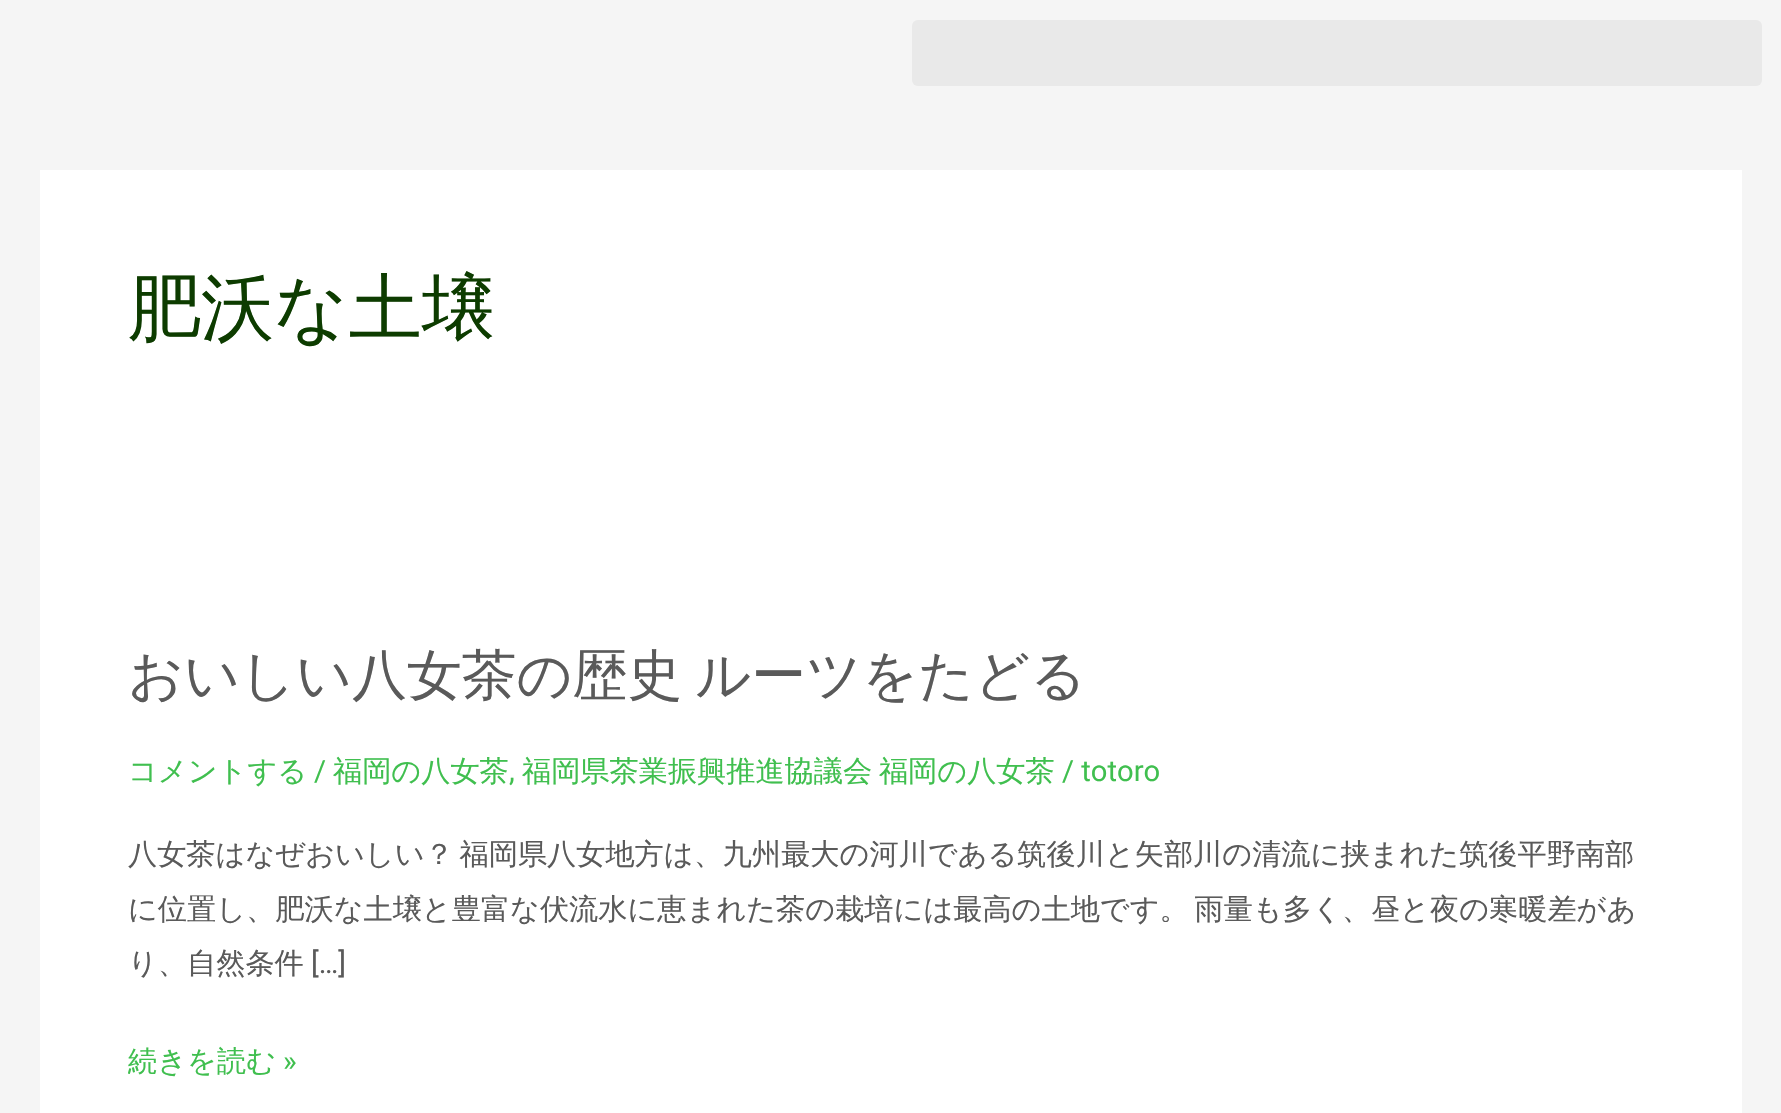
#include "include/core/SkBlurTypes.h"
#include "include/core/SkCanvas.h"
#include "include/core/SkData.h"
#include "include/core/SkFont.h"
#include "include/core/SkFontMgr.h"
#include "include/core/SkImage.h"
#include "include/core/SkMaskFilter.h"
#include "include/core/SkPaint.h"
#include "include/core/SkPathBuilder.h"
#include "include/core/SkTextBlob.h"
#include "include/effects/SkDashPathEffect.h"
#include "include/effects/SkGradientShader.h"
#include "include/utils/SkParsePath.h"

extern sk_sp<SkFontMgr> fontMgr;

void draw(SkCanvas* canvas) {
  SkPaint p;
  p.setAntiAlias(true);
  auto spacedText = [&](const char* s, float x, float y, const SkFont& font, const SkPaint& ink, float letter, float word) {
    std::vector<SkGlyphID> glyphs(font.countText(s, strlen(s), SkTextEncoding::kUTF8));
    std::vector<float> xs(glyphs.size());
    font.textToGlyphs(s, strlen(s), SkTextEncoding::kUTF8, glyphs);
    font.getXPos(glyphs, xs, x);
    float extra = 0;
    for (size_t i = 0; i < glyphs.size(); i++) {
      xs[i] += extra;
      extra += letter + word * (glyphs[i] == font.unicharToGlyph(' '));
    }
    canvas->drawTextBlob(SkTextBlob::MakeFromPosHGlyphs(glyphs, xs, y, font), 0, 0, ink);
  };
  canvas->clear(SkColorSetRGB(245, 245, 245));
  p.setColor(SkColorSetRGB(233, 233, 233));
  canvas->drawRoundRect(SkRect::MakeLTRB(912, 20, 1762, 86), 6, 6, p);
  p.setColor(SK_ColorWHITE);
  canvas->drawRect(SkRect::MakeLTRB(40, 170, 1742, 1113), p);
  SkFont font1(fontMgr->matchFamilyStyle("WenQuanYi Zen Hei", SkFontStyle(500, SkFontStyle::kNormal_Width, SkFontStyle::kUpright_Slant)), 73);
  font1.setSubpixel(true);
  p.setColor(SkColorSetRGB(13, 60, 0));
  canvas->drawString("肥沃な土壌", 128, 333, font1, p);
  SkFont font2(fontMgr->matchFamilyStyle("WenQuanYi Zen Hei", SkFontStyle(500, SkFontStyle::kNormal_Width, SkFontStyle::kUpright_Slant)), 54.75f);
  font2.setSubpixel(true);
  p.setColor(SkColorSetRGB(90, 90, 90));
  spacedText("おいしい八女茶の歴史 ルーツをたどる", 128, 694, font2, p, 0, -3);
  SkFont font3(fontMgr->matchFamilyStyle("WenQuanYi Zen Hei", SkFontStyle(500, SkFontStyle::kNormal_Width, SkFontStyle::kUpright_Slant)), 29.18f);
  font3.setSubpixel(true);
  p.setColor(SkColorSetRGB(64, 191, 79));
  canvas->drawString("コメントする", 128, 781, font3, p);
  SkFont font4(fontMgr->matchFamilyStyle("Roboto", SkFontStyle::Normal()), 29.18f);
  font4.setSubpixel(true);
  canvas->drawString("/", 314, 781, font4, p);
  canvas->drawString("福岡の八女茶", 333, 781, font3, p);
  canvas->drawString(",", 509, 781, font4, p);
  spacedText("福岡県茶業振興推進協議会 福岡の八女茶", 522, 781, font3, p, 0, -2);
  canvas->drawString("/ totoro", 1062, 781, font4, p);
  p.setColor(SkColorSetRGB(90, 90, 90));
  spacedText("八女茶はなぜおいしい？ 福岡県八女地方は、九州最大の河川である筑後川と矢部川の清流に挟まれた筑後平野南部", 128, 864, font3, p, 0, -3);
  spacedText("に位置し、肥沃な土壌と豊富な伏流水に恵まれた茶の栽培には最高の土地です。 雨量も多く、昼と夜の寒暖差があ", 128, 919, font3, p, 0, -3);
  canvas->drawString("り、自然条件", 128, 973, font3, p);
  canvas->drawString("[…]", 311, 973, font4, p);
  canvas->save();
  canvas->clipRect(SkRect::MakeLTRB(128, 542, 1654, 1112));
  p.setColor(SkColorSetRGB(64, 191, 79));
  canvas->drawString("続きを読む", 128, 1071, font3, p);
  canvas->restore();
  canvas->drawString("»", 283, 1071, font4, p);
}
